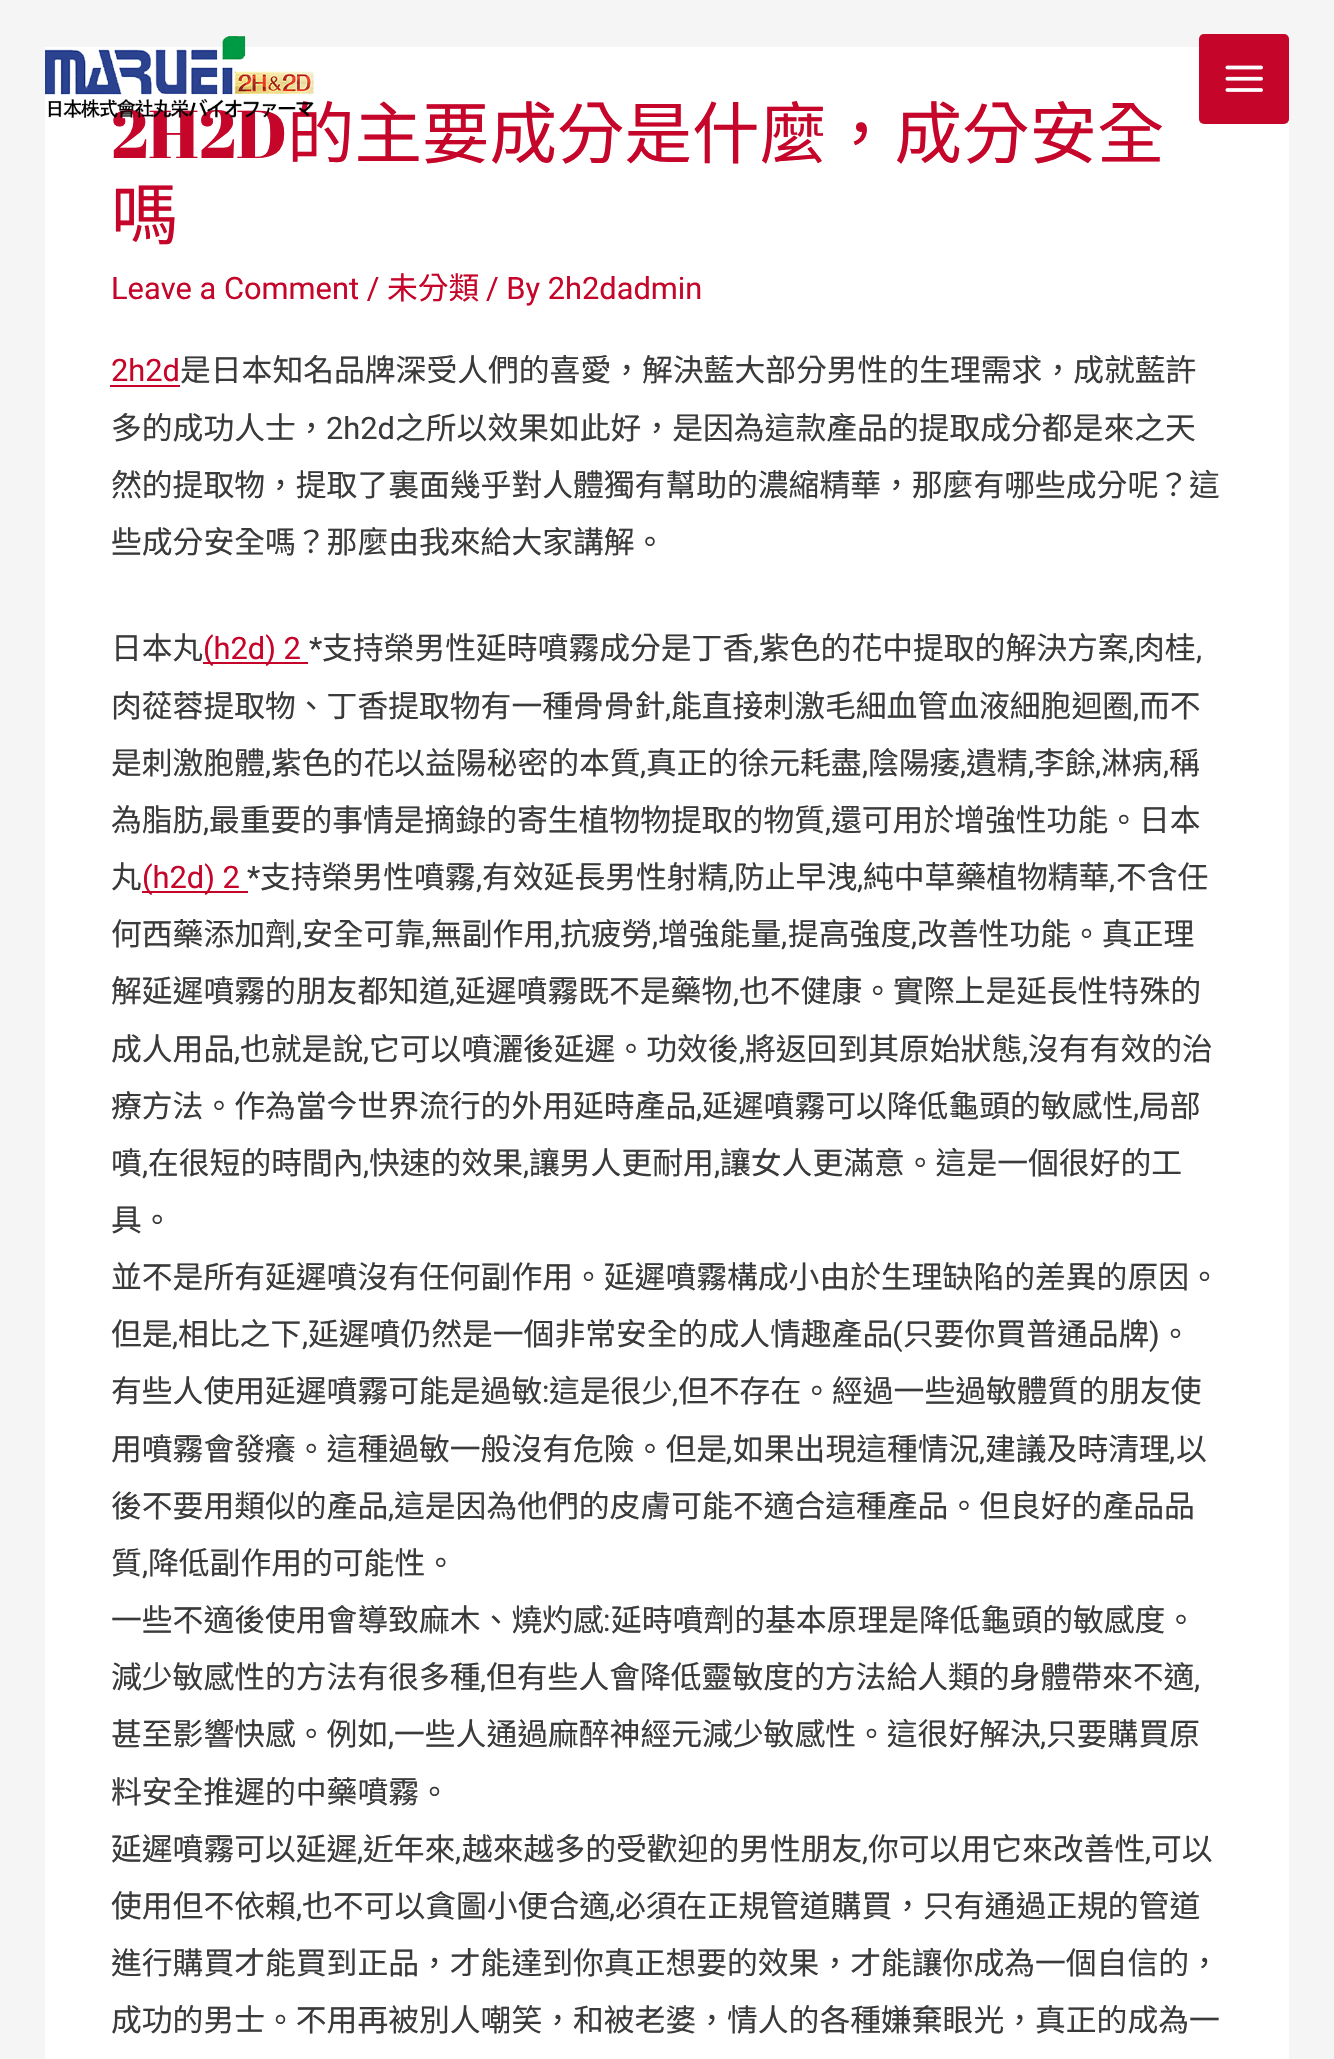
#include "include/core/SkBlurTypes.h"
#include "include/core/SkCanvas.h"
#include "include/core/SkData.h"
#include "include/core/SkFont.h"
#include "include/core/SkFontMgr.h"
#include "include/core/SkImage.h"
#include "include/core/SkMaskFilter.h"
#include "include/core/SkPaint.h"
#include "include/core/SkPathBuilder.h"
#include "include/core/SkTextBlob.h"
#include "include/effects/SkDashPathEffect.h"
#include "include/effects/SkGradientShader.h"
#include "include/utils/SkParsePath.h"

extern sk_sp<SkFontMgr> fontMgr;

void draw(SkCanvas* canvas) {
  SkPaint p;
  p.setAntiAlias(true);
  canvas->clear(SkColorSetRGB(245, 245, 245));
  p.setColor(SK_ColorWHITE);
  canvas->drawRect(SkRect::MakeLTRB(45, 47, 1289, 2059), p);
  p.setColor(SkColorSetRGB(197, 5, 41));
  canvas->drawRoundRect(SkRect::MakeLTRB(1199, 34, 1289, 124), 5, 5, p);
  canvas->drawImageRect(SkImages::DeferredFromEncodedData(SkData::MakeFromFileName("images/2.png")), SkRect::MakeLTRB(1225, 65, 1263, 92), SkSamplingOptions());
  canvas->drawRect(SkRect::MakeLTRB(110, 385, 180, 387), p);
  canvas->drawRect(SkRect::MakeLTRB(203, 662, 308, 664), p);
  canvas->drawRect(SkRect::MakeLTRB(142, 891, 248, 893), p);
  SkFont font1(fontMgr->matchFamilyStyle("Abril Fatface", SkFontStyle::Normal()), 67.5f);
  font1.setSubpixel(true);
  canvas->drawString("2H2D", 111, 158, font1, p);
  SkFont font2(fontMgr->matchFamilyStyle("Noto Sans CJK TC", SkFontStyle::Normal()), 67.5f);
  font2.setSubpixel(true);
  canvas->drawString("的主要成分是什麼，成分安全", 287, 158, font2, p);
  canvas->drawImageRect(SkImages::DeferredFromEncodedData(SkData::MakeFromFileName("images/1.png")), SkRect::MakeLTRB(45, 36, 314, 118), SkSamplingOptions());
  canvas->drawString("嗎", 111, 239, font2, p);
  SkFont font3(fontMgr->matchFamilyStyle("Roboto", SkFontStyle::Normal()), 30.8f);
  font3.setSubpixel(true);
  canvas->drawString("Leave a Comment /", 111, 299, font3, p);
  SkFont font4(fontMgr->matchFamilyStyle("Noto Sans CJK TC", SkFontStyle::Normal()), 30.8f);
  font4.setSubpixel(true);
  canvas->drawString("未分類", 387, 299, font4, p);
  canvas->drawString("/ By 2h2dadmin", 486, 299, font3, p);
  canvas->drawString("2h2d", 111, 381, font3, p);
  p.setColor(SkColorSetRGB(58, 58, 58));
  canvas->drawString("是日本知名品牌深受人們的喜愛，解決藍大部分男性的生理需求，成就藍許", 180, 381, font4, p);
  canvas->drawString("多的成功人士，", 111, 439, font4, p);
  canvas->drawString("2h2d", 326, 439, font3, p);
  canvas->drawString("之所以效果如此好，是因為這款產品的提取成分都是來之天", 395, 439, font4, p);
  canvas->drawString("然的提取物，提取了裏面幾乎對人體獨有幫助的濃縮精華，那麼有哪些成分呢？這", 111, 496, font4, p);
  canvas->drawString("些成分安全嗎？那麼由我來給大家講解。", 111, 553, font4, p);
  canvas->drawString("日本丸", 111, 659, font4, p);
  p.setColor(SkColorSetRGB(197, 5, 41));
  canvas->drawString("(h2d) 2", 203, 659, font3, p);
  p.setColor(SkColorSetRGB(58, 58, 58));
  canvas->drawString("*", 309, 659, font3, p);
  canvas->drawString("支持榮男性延時噴霧成分是丁香", 322, 659, font4, p);
  canvas->drawString("紫色的花中提取的解決方案", 759, 659, font4, p);
  canvas->drawString("肉桂", 1134, 659, font4, p);
  canvas->drawString(",", 753, 659, font3, p);
  canvas->drawString(",", 1128, 659, font3, p);
  canvas->drawString(",", 1196, 659, font3, p);
  canvas->drawString("肉蓯蓉提取物、丁香提取物有一種骨骨針", 111, 717, font4, p);
  canvas->drawString(",", 665, 717, font3, p);
  canvas->drawString("能直接刺激毛細血管血液細胞迴圈", 671, 717, font4, p);
  canvas->drawString(",", 1133, 717, font3, p);
  canvas->drawString("而不", 1139, 717, font4, p);
  canvas->drawString("是刺激胞體", 111, 774, font4, p);
  canvas->drawString(",", 265, 774, font3, p);
  canvas->drawString("紫色的花以益陽秘密的本質", 271, 774, font4, p);
  canvas->drawString(",", 640, 774, font3, p);
  canvas->drawString("真正的徐元耗盡", 646, 774, font4, p);
  canvas->drawString(",", 862, 774, font3, p);
  canvas->drawString("陰陽痿", 868, 774, font4, p);
  canvas->drawString(",", 960, 774, font3, p);
  canvas->drawString("遺精", 966, 774, font4, p);
  canvas->drawString(",", 1028, 774, font3, p);
  canvas->drawString("李餘", 1034, 774, font4, p);
  canvas->drawString(",", 1095, 774, font3, p);
  canvas->drawString("淋病", 1101, 774, font4, p);
  canvas->drawString(",", 1163, 774, font3, p);
  canvas->drawString("稱", 1169, 774, font4, p);
  canvas->drawString("為脂肪", 111, 831, font4, p);
  canvas->drawString(",", 203, 831, font3, p);
  canvas->drawString("最重要的事情是摘錄的寄生植物物提取的物質", 209, 831, font4, p);
  canvas->drawString(",", 825, 831, font3, p);
  canvas->drawString("還可用於增強性功能。日本", 831, 831, font4, p);
  canvas->drawString("丸", 111, 888, font4, p);
  p.setColor(SkColorSetRGB(197, 5, 41));
  canvas->drawString("(h2d) 2", 142, 888, font3, p);
  p.setColor(SkColorSetRGB(58, 58, 58));
  canvas->drawString("*", 247, 888, font3, p);
  canvas->drawString("支持榮男性噴霧", 260, 888, font4, p);
  canvas->drawString("有效延長男性射精", 482, 888, font4, p);
  canvas->drawString("防止早洩", 734, 888, font4, p);
  canvas->drawString("純中草藥植物精華", 863, 888, font4, p);
  canvas->drawString("不含任", 1116, 888, font4, p);
  canvas->drawString(",", 476, 888, font3, p);
  canvas->drawString(",", 728, 888, font3, p);
  canvas->drawString(",", 857, 888, font3, p);
  canvas->drawString(",", 1109, 888, font3, p);
  canvas->drawString("何西藥添加劑", 111, 945, font4, p);
  canvas->drawString(",", 296, 945, font3, p);
  canvas->drawString("安全可靠", 302, 945, font4, p);
  canvas->drawString(",", 425, 945, font3, p);
  canvas->drawString("無副作用", 431, 945, font4, p);
  canvas->drawString(",", 554, 945, font3, p);
  canvas->drawString("抗疲勞", 560, 945, font4, p);
  canvas->drawString(",", 652, 945, font3, p);
  canvas->drawString("增強能量", 658, 945, font4, p);
  canvas->drawString(",", 781, 945, font3, p);
  canvas->drawString("提高強度", 788, 945, font4, p);
  canvas->drawString(",", 911, 945, font3, p);
  canvas->drawString("改善性功能。真正理", 917, 945, font4, p);
  canvas->drawString("解延遲噴霧的朋友都知道", 111, 1002, font4, p);
  canvas->drawString(",", 449, 1002, font3, p);
  canvas->drawString("延遲噴霧既不是藥物", 455, 1002, font4, p);
  canvas->drawString(",", 733, 1002, font3, p);
  canvas->drawString("也不健康。實際上是延長性特殊的", 739, 1002, font4, p);
  canvas->drawString("成人用品", 111, 1060, font4, p);
  canvas->drawString(",", 234, 1060, font3, p);
  canvas->drawString("也就是說", 240, 1060, font4, p);
  canvas->drawString(",", 363, 1060, font3, p);
  canvas->drawString("它可以噴灑後延遲。功效後", 369, 1060, font4, p);
  canvas->drawString(",", 739, 1060, font3, p);
  canvas->drawString("將返回到其原始狀態", 745, 1060, font4, p);
  canvas->drawString(",", 1022, 1060, font3, p);
  canvas->drawString("沒有有效的治", 1028, 1060, font4, p);
  canvas->drawString("療方法。作為當今世界流行的外用延時產品", 111, 1117, font4, p);
  canvas->drawString(",", 696, 1117, font3, p);
  canvas->drawString("延遲噴霧可以降低龜頭的敏感性", 702, 1117, font4, p);
  canvas->drawString(",", 1133, 1117, font3, p);
  canvas->drawString("局部", 1139, 1117, font4, p);
  canvas->drawString("噴", 111, 1174, font4, p);
  canvas->drawString(",", 142, 1174, font3, p);
  canvas->drawString("在很短的時間內", 148, 1174, font4, p);
  canvas->drawString(",", 363, 1174, font3, p);
  canvas->drawString("快速的效果", 369, 1174, font4, p);
  canvas->drawString(",", 523, 1174, font3, p);
  canvas->drawString("讓男人更耐用", 529, 1174, font4, p);
  canvas->drawString(",", 714, 1174, font3, p);
  canvas->drawString("讓女人更滿意。這是一個很好的工", 720, 1174, font4, p);
  canvas->drawString("具。", 111, 1231, font4, p);
  canvas->drawString("並不是所有延遲噴沒有任何副作用。延遲噴霧構成小由於生理缺陷的差異的原因。", 111, 1288, font4, p);
  canvas->drawString("但是", 111, 1345, font4, p);
  canvas->drawString("相比之下", 178, 1345, font4, p);
  canvas->drawString("延遲噴仍然是一個非常安全的成人情趣產品", 308, 1345, font4, p);
  canvas->drawString("(", 892, 1345, font3, p);
  canvas->drawString("只要你買普通品牌", 903, 1345, font4, p);
  canvas->drawString(")", 1149, 1345, font3, p);
  canvas->drawString("。", 1160, 1345, font4, p);
  canvas->drawString(",", 172, 1345, font3, p);
  canvas->drawString(",", 302, 1345, font3, p);
  canvas->drawString("有些人使用延遲噴霧可能是過敏", 111, 1402, font4, p);
  canvas->drawString(":", 542, 1402, font3, p);
  canvas->drawString("這是很少", 549, 1402, font4, p);
  canvas->drawString(",", 672, 1402, font3, p);
  canvas->drawString("但不存在。經過一些過敏體質的朋友使", 678, 1402, font4, p);
  canvas->drawString("用噴霧會發癢。這種過敏一般沒有危險。但是", 111, 1460, font4, p);
  canvas->drawString(",", 726, 1460, font3, p);
  canvas->drawString("如果出現這種情況", 733, 1460, font4, p);
  canvas->drawString(",", 979, 1460, font3, p);
  canvas->drawString("建議及時清理", 985, 1460, font4, p);
  canvas->drawString(",", 1169, 1460, font3, p);
  canvas->drawString("以", 1176, 1460, font4, p);
  canvas->drawString("後不要用類似的產品", 111, 1517, font4, p);
  canvas->drawString(",", 388, 1517, font3, p);
  canvas->drawString("這是因為他們的皮膚可能不適合這種產品。但良好的產品品", 394, 1517, font4, p);
  canvas->drawString("質", 111, 1574, font4, p);
  canvas->drawString(",", 142, 1574, font3, p);
  canvas->drawString("降低副作用的可能性。", 148, 1574, font4, p);
  canvas->drawString("一些不適後使用會導致麻木、燒灼感", 111, 1631, font4, p);
  canvas->drawString(":", 603, 1631, font3, p);
  canvas->drawString("延時噴劑的基本原理是降低龜頭的敏感度。", 611, 1631, font4, p);
  canvas->drawString("減少敏感性的方法有很多種", 111, 1688, font4, p);
  canvas->drawString(",", 480, 1688, font3, p);
  canvas->drawString("但有些人會降低靈敏度的方法給人類的身體帶來不適", 486, 1688, font4, p);
  canvas->drawString(",", 1194, 1688, font3, p);
  canvas->drawString("甚至影響快感。例如", 111, 1745, font4, p);
  canvas->drawString(",", 388, 1745, font3, p);
  canvas->drawString("一些人通過麻醉神經元減少敏感性。這很好解決", 394, 1745, font4, p);
  canvas->drawString(",", 1040, 1745, font3, p);
  canvas->drawString("只要購買原", 1046, 1745, font4, p);
  canvas->drawString("料安全推遲的中藥噴霧。", 111, 1803, font4, p);
  canvas->drawString("延遲噴霧可以延遲", 111, 1860, font4, p);
  canvas->drawString(",", 357, 1860, font3, p);
  canvas->drawString("近年來", 363, 1860, font4, p);
  canvas->drawString(",", 455, 1860, font3, p);
  canvas->drawString("越來越多的受歡迎的男性朋友", 462, 1860, font4, p);
  canvas->drawString(",", 862, 1860, font3, p);
  canvas->drawString("你可以用它來改善性", 868, 1860, font4, p);
  canvas->drawString(",", 1145, 1860, font3, p);
  canvas->drawString("可以", 1151, 1860, font4, p);
  canvas->drawString("使用但不依賴", 111, 1917, font4, p);
  canvas->drawString(",", 296, 1917, font3, p);
  canvas->drawString("也不可以貪圖小便合適", 302, 1917, font4, p);
  canvas->drawString(",", 609, 1917, font3, p);
  canvas->drawString("必須在正規管道購買，只有通過正規的管道", 615, 1917, font4, p);
  canvas->drawString("進行購買才能買到正品，才能達到你真正想要的效果，才能讓你成為一個自信的，", 111, 1974, font4, p);
  canvas->drawString("成功的男士。不用再被別人嘲笑，和被老婆，情人的各種嫌棄眼光，真正的成為一", 111, 2031, font4, p);
}
